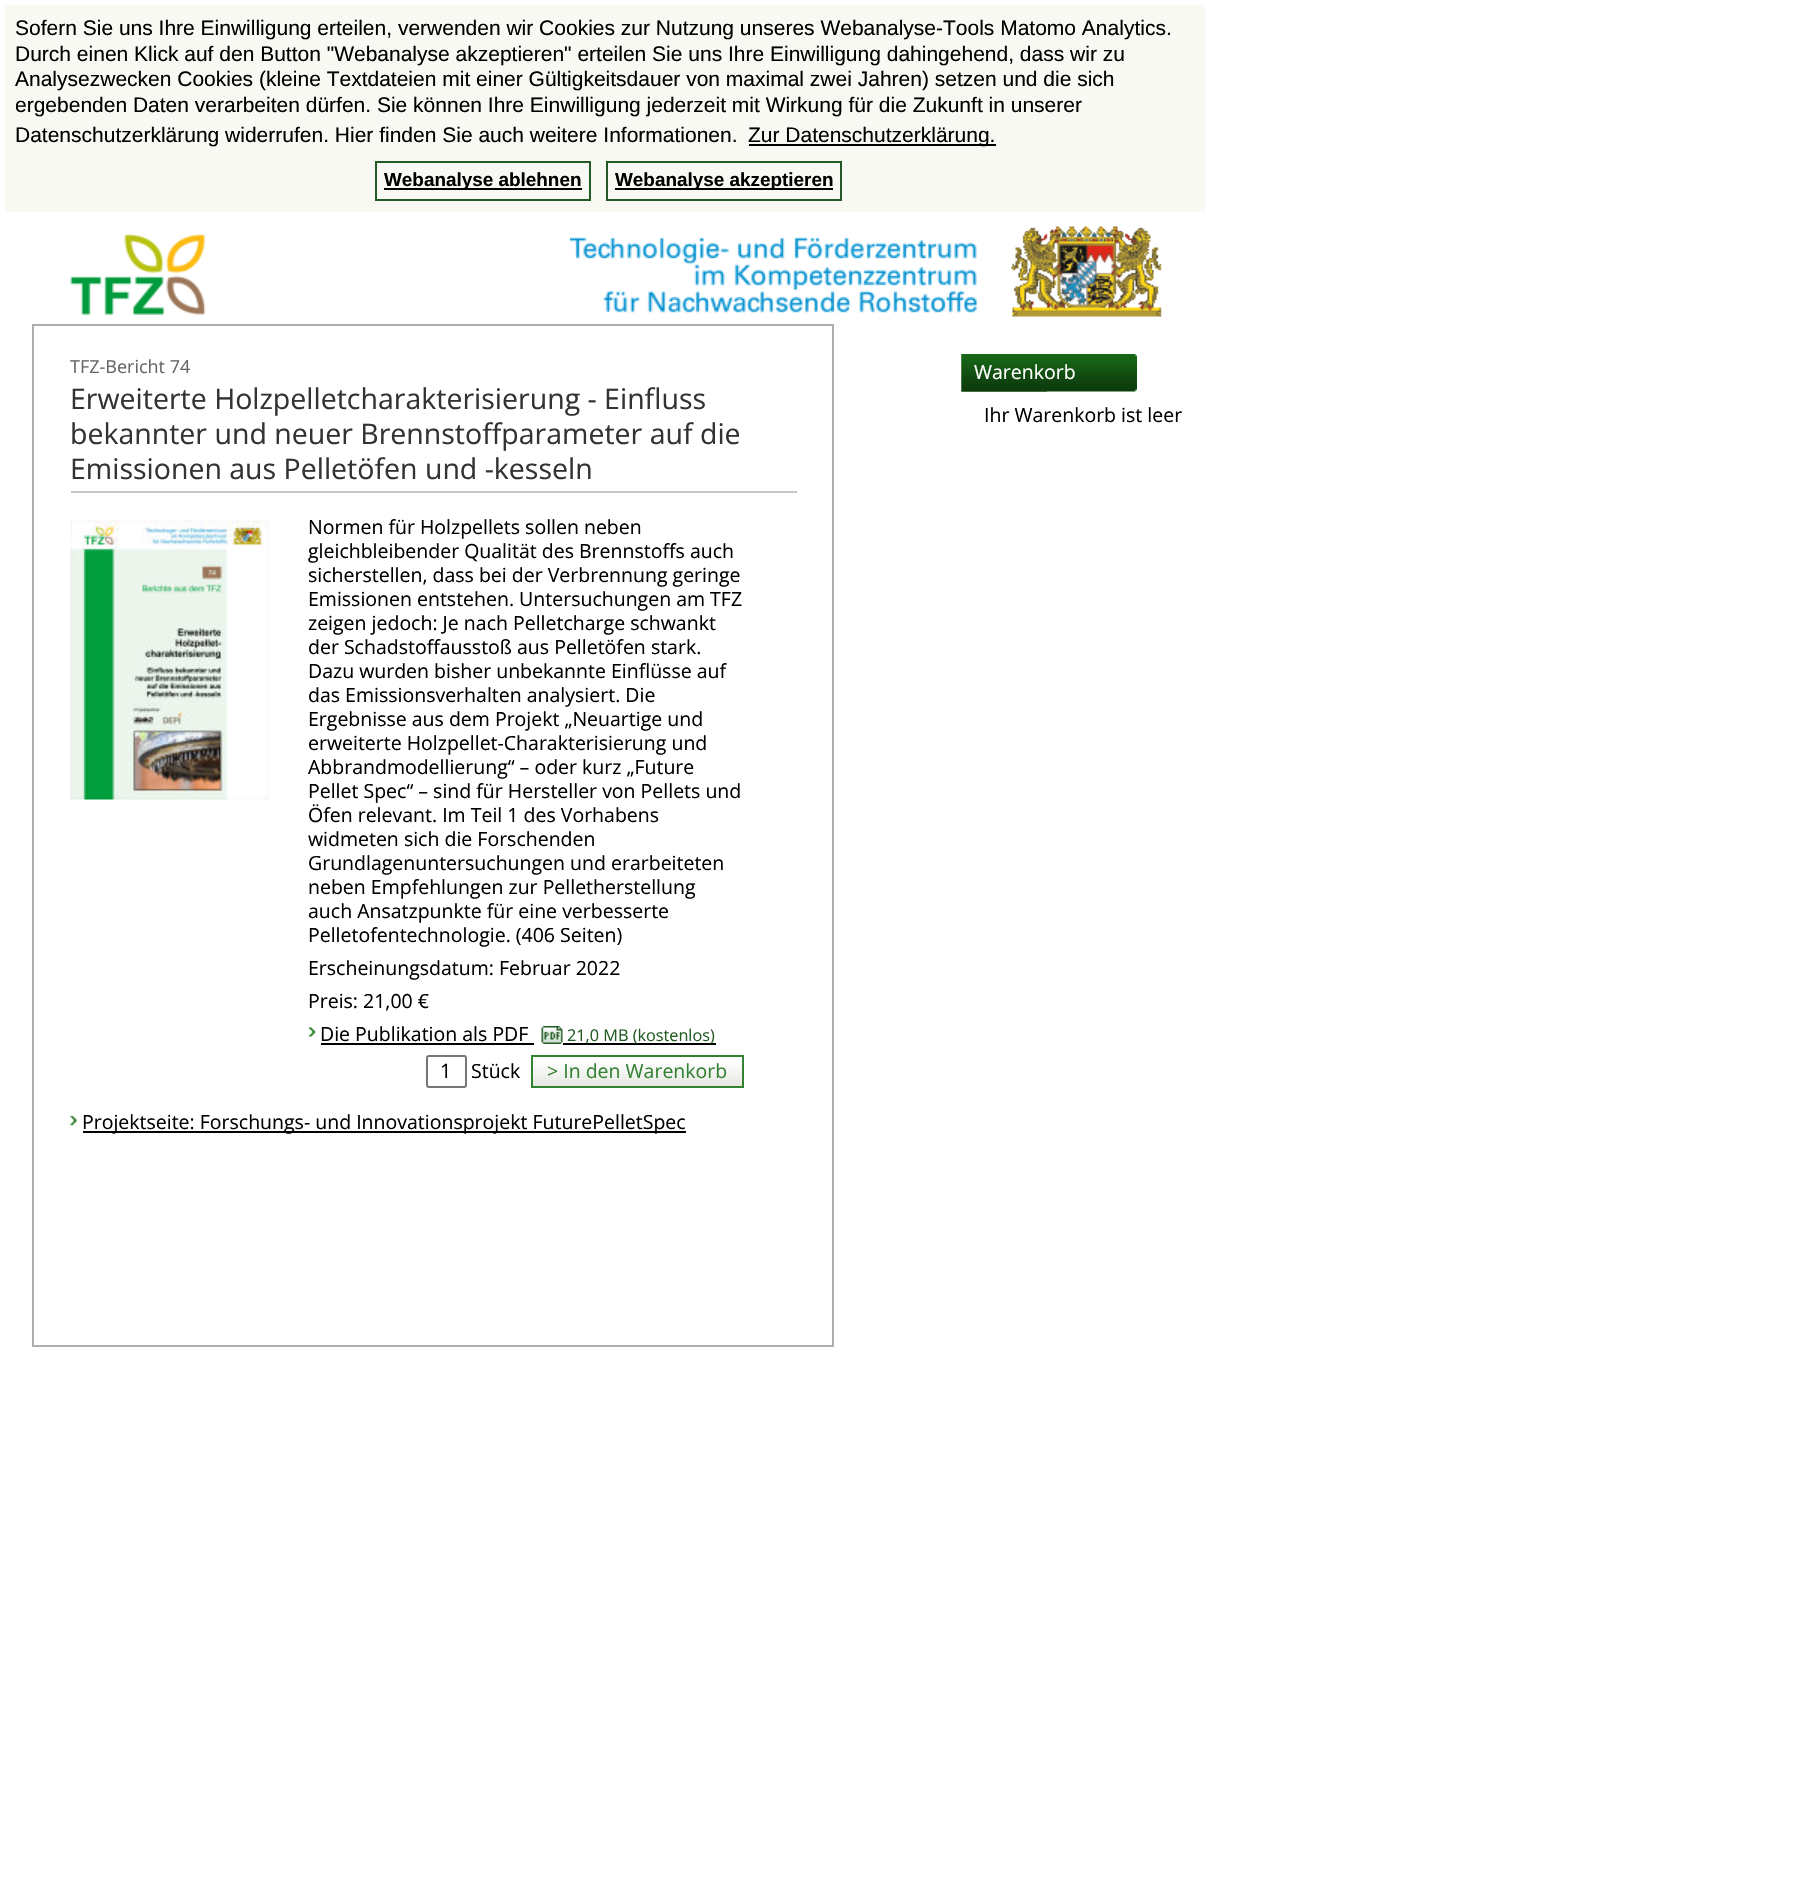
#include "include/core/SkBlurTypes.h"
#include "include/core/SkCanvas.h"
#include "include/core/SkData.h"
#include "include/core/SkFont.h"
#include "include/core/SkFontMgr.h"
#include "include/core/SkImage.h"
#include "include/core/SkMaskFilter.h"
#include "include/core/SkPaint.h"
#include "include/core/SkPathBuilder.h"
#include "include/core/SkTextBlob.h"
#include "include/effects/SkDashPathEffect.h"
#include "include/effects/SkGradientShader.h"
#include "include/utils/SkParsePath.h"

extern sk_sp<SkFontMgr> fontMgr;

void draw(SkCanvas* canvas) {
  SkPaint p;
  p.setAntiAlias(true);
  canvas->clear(SK_ColorWHITE);
  p.setColor(SkColorSetRGB(247, 249, 242));
  canvas->drawRect(SkRect::MakeLTRB(5, 5, 1205, 212), p);
  p.setColor(SK_ColorBLACK);
  canvas->drawRect(SkRect::MakeLTRB(749, 144, 996, 146), p);
  p.setStyle(SkPaint::kStroke_Style);
  p.setStrokeWidth(2);
  p.setColor(SkColorSetRGB(35, 90, 35));
  canvas->drawRect(SkRect::MakeLTRB(376, 162, 590, 200), p);
  p.setStyle(SkPaint::kFill_Style);
  p.setColor(SK_ColorBLACK);
  canvas->drawRect(SkRect::MakeLTRB(384, 188, 582, 190), p);
  p.setStyle(SkPaint::kStroke_Style);
  p.setColor(SkColorSetRGB(35, 90, 35));
  canvas->drawRect(SkRect::MakeLTRB(607, 162, 841, 200), p);
  p.setStyle(SkPaint::kFill_Style);
  p.setColor(SK_ColorBLACK);
  canvas->drawRect(SkRect::MakeLTRB(615, 188, 833, 190), p);
  canvas->drawImageRect(SkImages::DeferredFromEncodedData(SkData::MakeFromFileName("images/1.png")), SkRect::MakeLTRB(70, 234, 206, 315), SkSamplingOptions());
  canvas->drawImageRect(SkImages::DeferredFromEncodedData(SkData::MakeFromFileName("images/2.png")), SkRect::MakeLTRB(570, 237, 978, 313), SkSamplingOptions());
  canvas->drawImageRect(SkImages::DeferredFromEncodedData(SkData::MakeFromFileName("images/3.png")), SkRect::MakeLTRB(1011, 226, 1162, 317), SkSamplingOptions());
  p.setStyle(SkPaint::kStroke_Style);
  p.setColor(SkColorSetRGB(174, 174, 174));
  canvas->drawRect(SkRect::MakeLTRB(33, 325, 833, 1346), p);
  p.setStyle(SkPaint::kFill_Style);
  p.setColor(SkColorSetRGB(198, 198, 198));
  canvas->drawRect(SkRect::MakeLTRB(71, 491, 797, 493), p);
  canvas->drawImageRect(SkImages::DeferredFromEncodedData(SkData::MakeFromFileName("images/4.png")), SkRect::MakeLTRB(70, 520, 269, 800), SkSamplingOptions());
  canvas->drawImageRect(SkImages::DeferredFromEncodedData(SkData::MakeFromFileName("images/5.png")), SkRect::MakeLTRB(309, 1027, 316, 1037), SkSamplingOptions());
  p.setColor(SK_ColorBLACK);
  canvas->drawRect(SkRect::MakeLTRB(321, 1043, 534, 1045), p);
  canvas->drawImageRect(SkImages::DeferredFromEncodedData(SkData::MakeFromFileName("images/6.png")), SkRect::MakeLTRB(541, 1026, 563, 1044), SkSamplingOptions());
  canvas->drawRect(SkRect::MakeLTRB(563, 1043, 716, 1045), p);
  p.setStyle(SkPaint::kStroke_Style);
  p.setColor(SkColorSetRGB(118, 118, 118));
  canvas->drawRoundRect(SkRect::MakeLTRB(427, 1056, 466, 1087), 2, 2, p);
  canvas->drawImageRect(SkImages::DeferredFromEncodedData(SkData::MakeFromFileName("images/7.png")), SkRect::MakeLTRB(533, 1064, 742, 1086), SkSamplingOptions());
  p.setColor(SkColorSetRGB(51, 130, 51));
  canvas->drawRect(SkRect::MakeLTRB(532, 1056, 743, 1087), p);
  canvas->drawImageRect(SkImages::DeferredFromEncodedData(SkData::MakeFromFileName("images/8.png")), SkRect::MakeLTRB(70, 1115, 77, 1126), SkSamplingOptions());
  p.setStyle(SkPaint::kFill_Style);
  p.setColor(SK_ColorBLACK);
  canvas->drawRect(SkRect::MakeLTRB(83, 1131, 686, 1133), p);
  canvas->drawImageRect(SkImages::DeferredFromEncodedData(SkData::MakeFromFileName("images/9.png")), SkRect::MakeLTRB(961, 354, 1047, 392), SkSamplingOptions());
  canvas->drawImageRect(SkImages::DeferredFromEncodedData(SkData::MakeFromFileName("images/10.png")), SkRect::MakeLTRB(961, 354, 1137, 392), SkSamplingOptions());
  SkFont font1(fontMgr->matchFamilyStyle("Liberation Sans", SkFontStyle::Normal()), 21);
  font1.setSubpixel(true);
  canvas->drawString("Sofern Sie uns Ihre Einwilligung erteilen, verwenden wir Cookies zur Nutzung unseres Webanalyse-Tools Matomo Analytics.", 15, 35, font1, p);
  canvas->drawString("Durch einen Klick auf den Button \"Webanalyse akzeptieren\" erteilen Sie uns Ihre Einwilligung dahingehend, dass wir zu", 15, 61, font1, p);
  canvas->drawString("Analysezwecken Cookies (kleine Textdateien mit einer Gültigkeitsdauer von maximal zwei Jahren) setzen und die sich", 15, 86, font1, p);
  canvas->drawString("ergebenden Daten verarbeiten dürfen. Sie können Ihre Einwilligung jederzeit mit Wirkung für die Zukunft in unserer", 15, 112, font1, p);
  canvas->drawString("Datenschutzerklärung widerrufen. Hier finden Sie auch weitere Informationen.", 15, 142, font1, p);
  canvas->drawString("Zur Datenschutzerklärung.", 748, 142, font1, p);
  SkFont font2(fontMgr->matchFamilyStyle("Liberation Sans", SkFontStyle::Bold()), 18.9f);
  font2.setSubpixel(true);
  canvas->drawString("Webanalyse ablehnen", 384, 186, font2, p);
  canvas->drawString("Webanalyse akzeptieren", 615, 186, font2, p);
  SkFont font3(fontMgr->matchFamilyStyle("Open Sans", SkFontStyle::Normal()), 18);
  font3.setSubpixel(true);
  p.setColor(SkColorSetRGB(102, 102, 102));
  canvas->drawString("TFZ-Bericht 74", 70, 373, font3, p);
  SkFont font4(fontMgr->matchFamilyStyle("Open Sans", SkFontStyle::Normal()), 28.5f);
  font4.setSubpixel(true);
  p.setColor(SkColorSetRGB(51, 51, 51));
  canvas->drawString("Erweiterte Holzpelletcharakterisierung - Einfluss", 70, 409, font4, p);
  canvas->drawString("bekannter und neuer Brennstoffparameter auf die", 70, 444, font4, p);
  canvas->drawString("Emissionen aus Pelletöfen und -kesseln", 70, 479, font4, p);
  SkFont font5(fontMgr->matchFamilyStyle("Open Sans", SkFontStyle::Normal()), 19.5f);
  font5.setSubpixel(true);
  p.setColor(SK_ColorBLACK);
  canvas->drawString("Normen für Holzpellets sollen neben", 308, 534, font5, p);
  canvas->drawString("gleichbleibender Qualität des Brennstoffs auch", 308, 558, font5, p);
  canvas->drawString("sicherstellen, dass bei der Verbrennung geringe", 308, 582, font5, p);
  canvas->drawString("Emissionen entstehen. Untersuchungen am TFZ", 308, 606, font5, p);
  canvas->drawString("zeigen jedoch: Je nach Pelletcharge schwankt", 308, 630, font5, p);
  canvas->drawString("der Schadstoffausstoß aus Pelletöfen stark.", 308, 654, font5, p);
  canvas->drawString("Dazu wurden bisher unbekannte Einflüsse auf", 308, 678, font5, p);
  canvas->drawString("das Emissionsverhalten analysiert. Die", 308, 702, font5, p);
  canvas->drawString("Ergebnisse aus dem Projekt „Neuartige und", 308, 726, font5, p);
  canvas->drawString("erweiterte Holzpellet-Charakterisierung und", 308, 750, font5, p);
  canvas->drawString("Abbrandmodellierung“ – oder kurz „Future", 308, 774, font5, p);
  canvas->drawString("Pellet Spec“ – sind für Hersteller von Pellets und", 308, 798, font5, p);
  canvas->drawString("Öfen relevant. Im Teil 1 des Vorhabens", 308, 822, font5, p);
  canvas->drawString("widmeten sich die Forschenden", 308, 846, font5, p);
  canvas->drawString("Grundlagenuntersuchungen und erarbeiteten", 308, 870, font5, p);
  canvas->drawString("neben Empfehlungen zur Pelletherstellung", 308, 894, font5, p);
  canvas->drawString("auch Ansatzpunkte für eine verbesserte", 308, 918, font5, p);
  canvas->drawString("Pelletofentechnologie. (406 Seiten)", 308, 942, font5, p);
  canvas->drawString("Erscheinungsdatum: Februar 2022", 308, 975, font5, p);
  canvas->drawString("Preis: 21,00 €", 308, 1008, font5, p);
  canvas->drawString("Die Publikation als PDF", 320, 1041, font5, p);
  SkFont font6(fontMgr->matchFamilyStyle("Open Sans", SkFontStyle::Normal()), 16.25f);
  font6.setSubpixel(true);
  p.setColor(SkColorSetRGB(35, 90, 35));
  canvas->drawString("21,0 MB (kostenlos)", 567, 1041, font6, p);
  SkFont font7(fontMgr->matchFamilyStyle("Open Sans", SkFontStyle::Normal()), 20);
  font7.setSubpixel(true);
  p.setColor(SK_ColorBLACK);
  canvas->drawString("1", 440, 1078, font7, p);
  canvas->drawString("Stück", 471, 1078, font5, p);
  p.setColor(SkColorSetRGB(51, 130, 51));
  canvas->drawString("> In den Warenkorb", 547, 1078, font5, p);
  p.setColor(SK_ColorBLACK);
  canvas->drawString("Projektseite: Forschungs- und Innovationsprojekt FuturePelletSpec", 82, 1129, font5, p);
  p.setColor(SK_ColorWHITE);
  canvas->drawString("Warenkorb", 974, 379, font5, p);
  p.setColor(SK_ColorBLACK);
  canvas->drawString("Ihr Warenkorb ist leer", 984, 422, font5, p);
}
